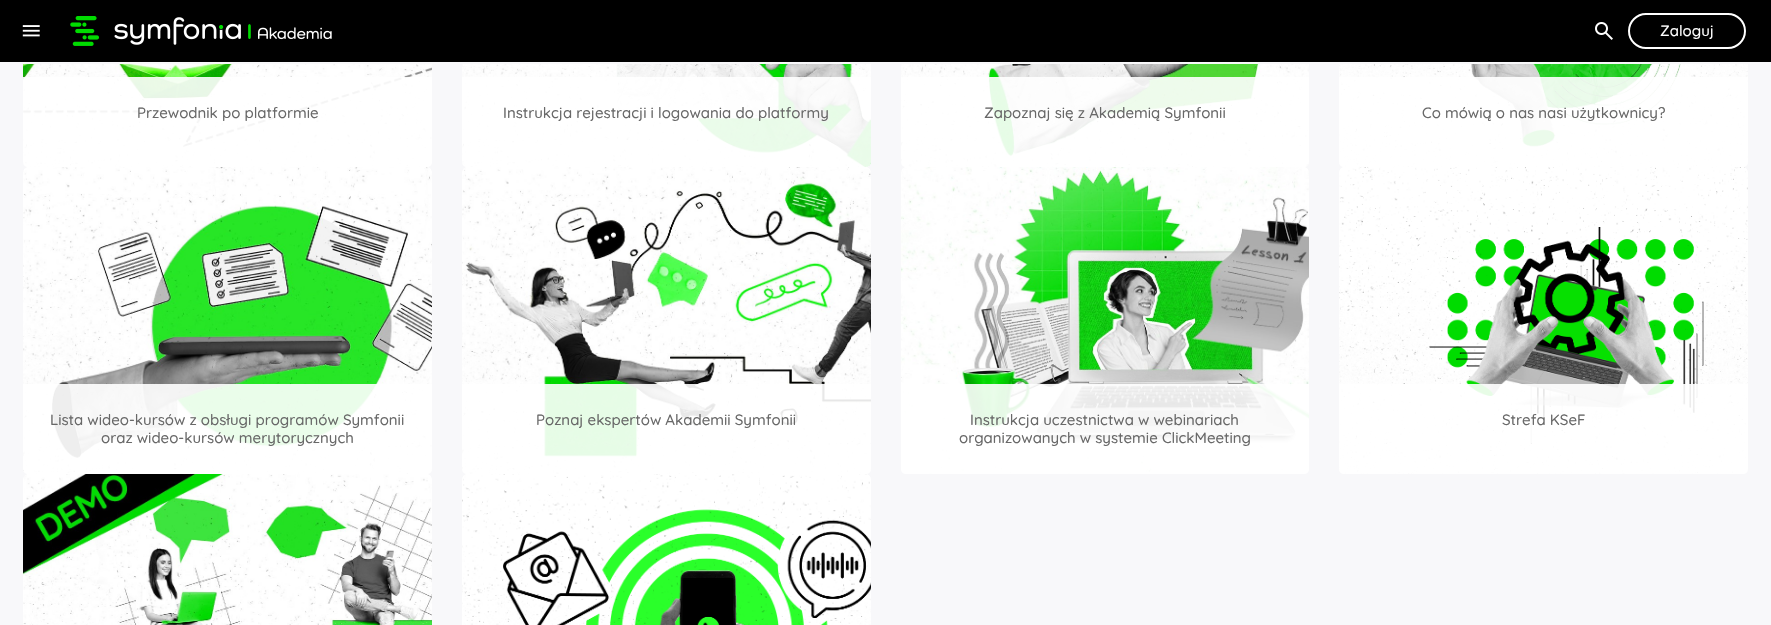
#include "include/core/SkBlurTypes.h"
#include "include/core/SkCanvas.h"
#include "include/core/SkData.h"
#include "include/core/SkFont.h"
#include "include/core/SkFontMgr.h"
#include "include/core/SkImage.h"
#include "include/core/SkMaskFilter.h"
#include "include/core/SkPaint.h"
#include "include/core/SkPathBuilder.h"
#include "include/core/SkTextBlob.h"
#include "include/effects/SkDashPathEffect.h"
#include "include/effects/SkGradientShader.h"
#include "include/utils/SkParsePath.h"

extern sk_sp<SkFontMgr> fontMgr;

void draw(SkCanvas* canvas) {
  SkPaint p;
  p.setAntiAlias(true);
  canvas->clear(SkColorSetRGB(248, 248, 250));
  p.setColor(SK_ColorBLACK);
  canvas->drawRect(SkRect::MakeLTRB(0, 0, 1771, 62), p);
  canvas->drawImageRect(SkImages::DeferredFromEncodedData(SkData::MakeFromFileName("images/1.png")), SkRect::MakeLTRB(22, 25, 40, 37), SkSamplingOptions());
  canvas->drawImageRect(SkImages::DeferredFromEncodedData(SkData::MakeFromFileName("images/2.png")), SkRect::MakeLTRB(70, 16, 332, 46), SkSamplingOptions());
  canvas->drawImageRect(SkImages::DeferredFromEncodedData(SkData::MakeFromFileName("images/3.png")), SkRect::MakeLTRB(1595, 22, 1613, 40), SkSamplingOptions());
  p.setStyle(SkPaint::kStroke_Style);
  p.setStrokeWidth(2);
  p.setColor(SK_ColorWHITE);
  canvas->drawRoundRect(SkRect::MakeLTRB(1629, 14, 1745, 48), 17, 17, p);
  canvas->drawImageRect(SkImages::DeferredFromEncodedData(SkData::MakeFromFileName("images/4.png")), SkRect::MakeLTRB(23, 64, 432, 167), SkSamplingOptions());
  p.setStyle(SkPaint::kFill_Style);
  p.setColor(SkColorSetARGB(230, 255, 255, 255));
  canvas->drawPath(SkPathBuilder().moveTo(23, 77).lineTo(432, 77).lineTo(432, 162).cubicTo(432, 165, 430, 167, 427, 167).lineTo(28, 167).cubicTo(25, 167, 23, 165, 23, 162).close().detach(), p);
  canvas->drawImageRect(SkImages::DeferredFromEncodedData(SkData::MakeFromFileName("images/5.png")), SkRect::MakeLTRB(462, 64, 871, 167), SkSamplingOptions());
  canvas->drawPath(SkPathBuilder().moveTo(462, 77).lineTo(871, 77).lineTo(871, 162).cubicTo(871, 165, 869, 167, 866, 167).lineTo(467, 167).cubicTo(464, 167, 462, 165, 462, 162).close().detach(), p);
  canvas->drawImageRect(SkImages::DeferredFromEncodedData(SkData::MakeFromFileName("images/6.png")), SkRect::MakeLTRB(901, 64, 1309, 167), SkSamplingOptions());
  canvas->drawPath(SkPathBuilder().moveTo(901, 77).lineTo(1309, 77).lineTo(1309, 162).cubicTo(1309, 165, 1307, 167, 1304, 167).lineTo(906, 167).cubicTo(903, 167, 901, 165, 901, 162).close().detach(), p);
  canvas->drawImageRect(SkImages::DeferredFromEncodedData(SkData::MakeFromFileName("images/7.png")), SkRect::MakeLTRB(1339, 64, 1748, 167), SkSamplingOptions());
  canvas->drawPath(SkPathBuilder().moveTo(1339, 77).lineTo(1748, 77).lineTo(1748, 162).cubicTo(1748, 165, 1746, 167, 1743, 167).lineTo(1344, 167).cubicTo(1341, 167, 1339, 165, 1339, 162).close().detach(), p);
  canvas->drawImageRect(SkImages::DeferredFromEncodedData(SkData::MakeFromFileName("images/8.png")), SkRect::MakeLTRB(23, 167, 432, 474), SkSamplingOptions());
  canvas->drawPath(SkPathBuilder().moveTo(23, 384).lineTo(432, 384).lineTo(432, 469).cubicTo(432, 472, 430, 474, 427, 474).lineTo(28, 474).cubicTo(25, 474, 23, 472, 23, 469).close().detach(), p);
  canvas->drawImageRect(SkImages::DeferredFromEncodedData(SkData::MakeFromFileName("images/9.png")), SkRect::MakeLTRB(462, 167, 871, 474), SkSamplingOptions());
  canvas->drawPath(SkPathBuilder().moveTo(462, 384).lineTo(871, 384).lineTo(871, 469).cubicTo(871, 472, 869, 474, 866, 474).lineTo(467, 474).cubicTo(464, 474, 462, 472, 462, 469).close().detach(), p);
  canvas->drawImageRect(SkImages::DeferredFromEncodedData(SkData::MakeFromFileName("images/10.png")), SkRect::MakeLTRB(901, 167, 1309, 474), SkSamplingOptions());
  canvas->drawPath(SkPathBuilder().moveTo(901, 384).lineTo(1309, 384).lineTo(1309, 469).cubicTo(1309, 472, 1307, 474, 1304, 474).lineTo(906, 474).cubicTo(903, 474, 901, 472, 901, 469).close().detach(), p);
  canvas->drawImageRect(SkImages::DeferredFromEncodedData(SkData::MakeFromFileName("images/11.png")), SkRect::MakeLTRB(1339, 167, 1748, 474), SkSamplingOptions());
  canvas->drawPath(SkPathBuilder().moveTo(1339, 384).lineTo(1748, 384).lineTo(1748, 469).cubicTo(1748, 472, 1746, 474, 1743, 474).lineTo(1344, 474).cubicTo(1341, 474, 1339, 472, 1339, 469).close().detach(), p);
  canvas->drawImageRect(SkImages::DeferredFromEncodedData(SkData::MakeFromFileName("images/12.png")), SkRect::MakeLTRB(23, 474, 432, 625), SkSamplingOptions());
  canvas->drawImageRect(SkImages::DeferredFromEncodedData(SkData::MakeFromFileName("images/13.png")), SkRect::MakeLTRB(462, 474, 871, 625), SkSamplingOptions());
  SkFont font1(fontMgr->matchFamilyStyle("Quicksand", SkFontStyle(500, SkFontStyle::kNormal_Width, SkFontStyle::kUpright_Slant)), 15);
  font1.setSubpixel(true);
  p.setColor(SK_ColorWHITE);
  canvas->drawString("Zaloguj", 1660, 36, font1, p);
  p.setColor(SkColorSetRGB(104, 104, 104));
  canvas->drawString("Przewodnik po platformie", 137, 118, font1, p);
  canvas->drawString("Instrukcja rejestracji i logowania do platformy", 503, 118, font1, p);
  canvas->drawString("Zapoznaj się z Akademią Symfonii", 984, 118, font1, p);
  canvas->drawString("Co mówią o nas nasi użytkownicy?", 1422, 118, font1, p);
  canvas->drawString("Lista wideo-kursów z obsługi programów Symfonii", 50, 425, font1, p);
  canvas->drawString("oraz wideo-kursów merytorycznych", 101, 443, font1, p);
  canvas->drawString("Poznaj ekspertów Akademii Symfonii", 536, 425, font1, p);
  canvas->drawString("Instrukcja uczestnictwa w webinariach", 970, 425, font1, p);
  canvas->drawString("organizowanych w systemie ClickMeeting", 959, 443, font1, p);
  canvas->drawString("Strefa KSeF", 1502, 425, font1, p);
}
